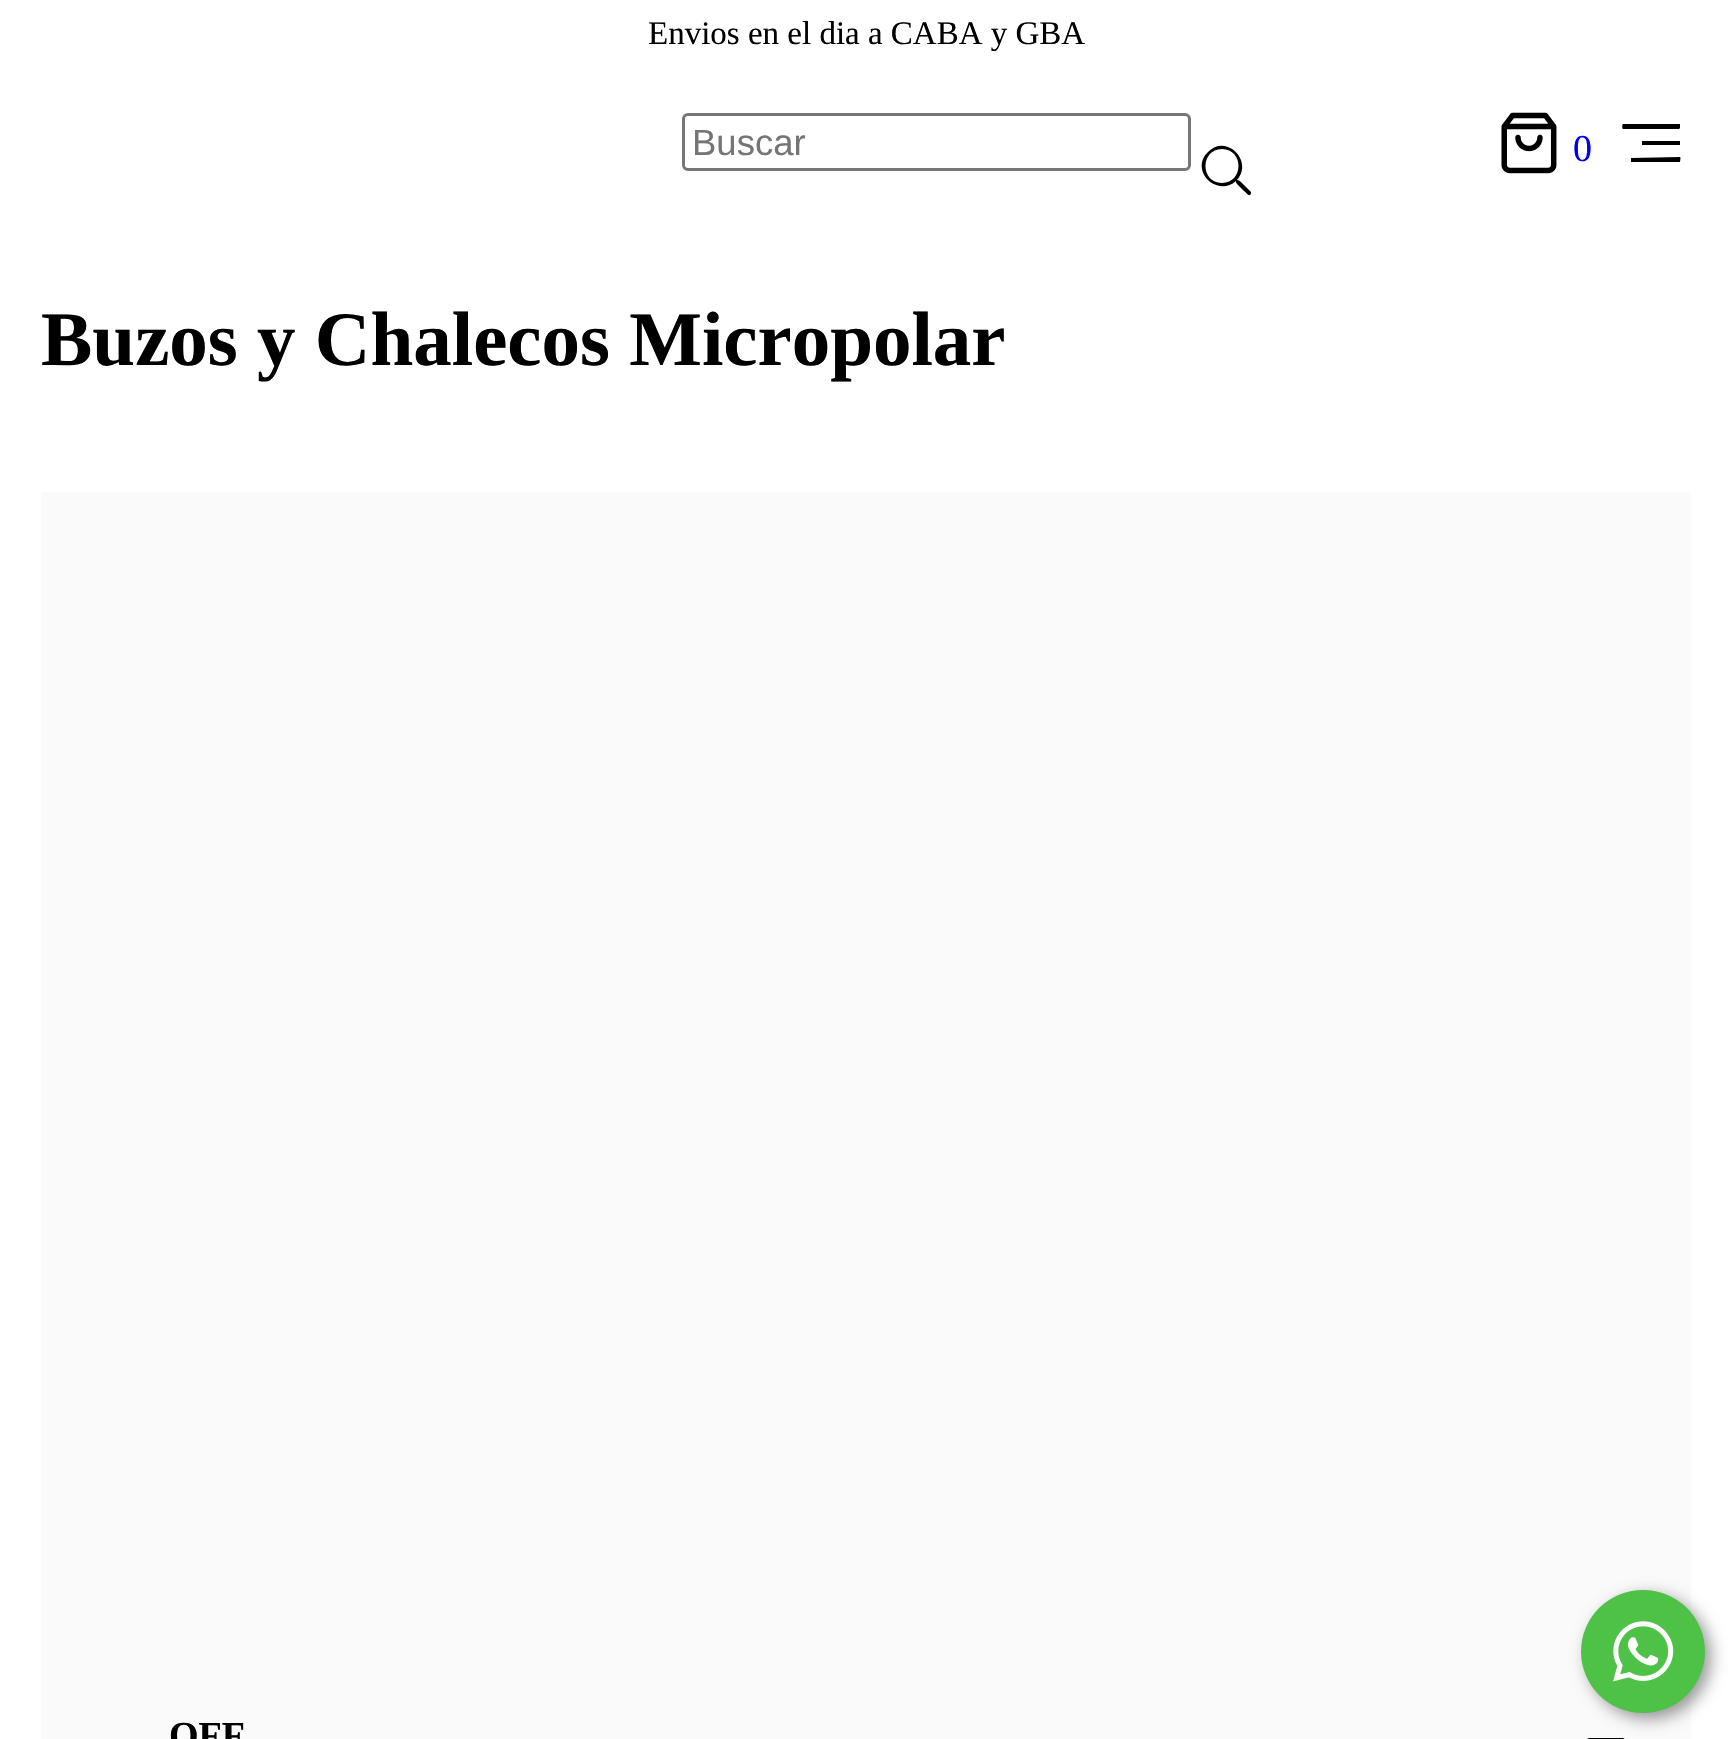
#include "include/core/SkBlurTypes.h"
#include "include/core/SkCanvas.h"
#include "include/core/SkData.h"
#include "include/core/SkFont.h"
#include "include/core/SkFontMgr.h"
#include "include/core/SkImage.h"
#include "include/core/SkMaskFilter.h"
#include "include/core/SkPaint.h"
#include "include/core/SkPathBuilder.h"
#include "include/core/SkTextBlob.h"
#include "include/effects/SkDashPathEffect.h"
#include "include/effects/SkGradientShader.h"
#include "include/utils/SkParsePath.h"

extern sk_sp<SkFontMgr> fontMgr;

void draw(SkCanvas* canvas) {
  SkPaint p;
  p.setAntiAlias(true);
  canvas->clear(SK_ColorWHITE);
  p.setStyle(SkPaint::kStroke_Style);
  p.setStrokeWidth(3);
  p.setColor(SkColorSetRGB(118, 118, 118));
  canvas->drawRoundRect(SkRect::MakeLTRB(683.5f, 114.5f, 1189.5f, 169.5f), 4.5f, 4.5f, p);
  p.setStyle(SkPaint::kFill_Style);
  p.setColor(SK_ColorBLACK);
  canvas->drawPath(SkPathBuilder().moveTo(1251, 192).lineTo(1243, 184).cubicTo(1241, 182, 1239, 180, 1237, 180).cubicTo(1254, 161, 1226, 133, 1208, 152).cubicTo(1189, 170, 1217, 198, 1236, 181).cubicTo(1236, 183, 1236, 183, 1238, 185).lineTo(1244, 191).cubicTo(1245, 191, 1250, 199, 1251, 193).close().moveTo(1222, 183).cubicTo(1200, 183, 1200, 149, 1222, 149).cubicTo(1244, 149, 1244, 183, 1222, 183).close().detach(), p);
  canvas->drawImageRect(SkImages::DeferredFromEncodedData(SkData::MakeFromFileName("images/1.png")), SkRect::MakeLTRB(1501, 112, 1557, 174), SkSamplingOptions());
  canvas->drawPath(SkPathBuilder().moveTo(1679, 129).lineTo(1623, 129).cubicTo(1622, 129, 1622, 124, 1623, 124).lineTo(1680, 124).lineTo(1680, 128).close().moveTo(1679, 145).lineTo(1642, 145).lineTo(1642, 141).lineTo(1680, 141).lineTo(1680, 145).close().moveTo(1679, 162).lineTo(1631, 162).lineTo(1631, 158).lineTo(1680, 157).cubicTo(1681, 157, 1680, 162, 1680, 162).close().detach(), p);
  p.setColor(SkColorSetRGB(250, 250, 250));
  canvas->drawRect(SkRect::MakeLTRB(41, 492, 1691, 1739), p);
  canvas->drawImageRect(SkImages::DeferredFromEncodedData(SkData::MakeFromFileName("images/2.png")), SkRect::MakeLTRB(1587, 1738, 1625, 1739), SkSamplingOptions());
  p.setColor(SkColorSetARGB(102, 0, 0, 0));
  p.setMaskFilter(SkMaskFilter::MakeBlur(kNormal_SkBlurStyle, 8));
  canvas->drawRoundRect(SkRect::MakeLTRB(1587, 1595, 1711, 1719), 62, 62, p);
  p.setMaskFilter(nullptr);
  p.setColor(SkColorSetRGB(77, 194, 71));
  canvas->drawRoundRect(SkRect::MakeLTRB(1581, 1590, 1705, 1713), 61.5f, 61.5f, p);
  canvas->drawImageRect(SkImages::DeferredFromEncodedData(SkData::MakeFromFileName("images/3.png")), SkRect::MakeLTRB(1613, 1621, 1674, 1682), SkSamplingOptions());
  SkFont font1(fontMgr->matchFamilyStyle("Liberation Serif", SkFontStyle::Normal()), 33);
  font1.setSubpixel(true);
  p.setColor(SK_ColorBLACK);
  canvas->drawString("Envios en el dia a CABA y GBA", 648, 44, font1, p);
  SkFont font2(fontMgr->matchFamilyStyle("Liberation Sans", SkFontStyle::Normal()), 36.5f);
  font2.setSubpixel(true);
  p.setColor(SkColorSetRGB(117, 117, 117));
  canvas->drawString("Buscar", 692, 155, font2, p);
  SkFont font3(fontMgr->matchFamilyStyle("Liberation Serif", SkFontStyle::Normal()), 38);
  font3.setSubpixel(true);
  p.setColor(SkColorSetRGB(0, 0, 238));
  canvas->drawString("0", 1573, 161, font3, p);
  SkFont font4(fontMgr->matchFamilyStyle("Liberation Serif", SkFontStyle::Bold()), 77);
  font4.setSubpixel(true);
  p.setColor(SK_ColorBLACK);
  canvas->drawString("Buzos y Chalecos Micropolar", 41, 365, font4, p);
  SkFont font5(fontMgr->matchFamilyStyle("Liberation Serif", SkFontStyle::Bold()), 38);
  font5.setSubpixel(true);
  canvas->drawString("OFF", 169, 1748, font5, p);
}
